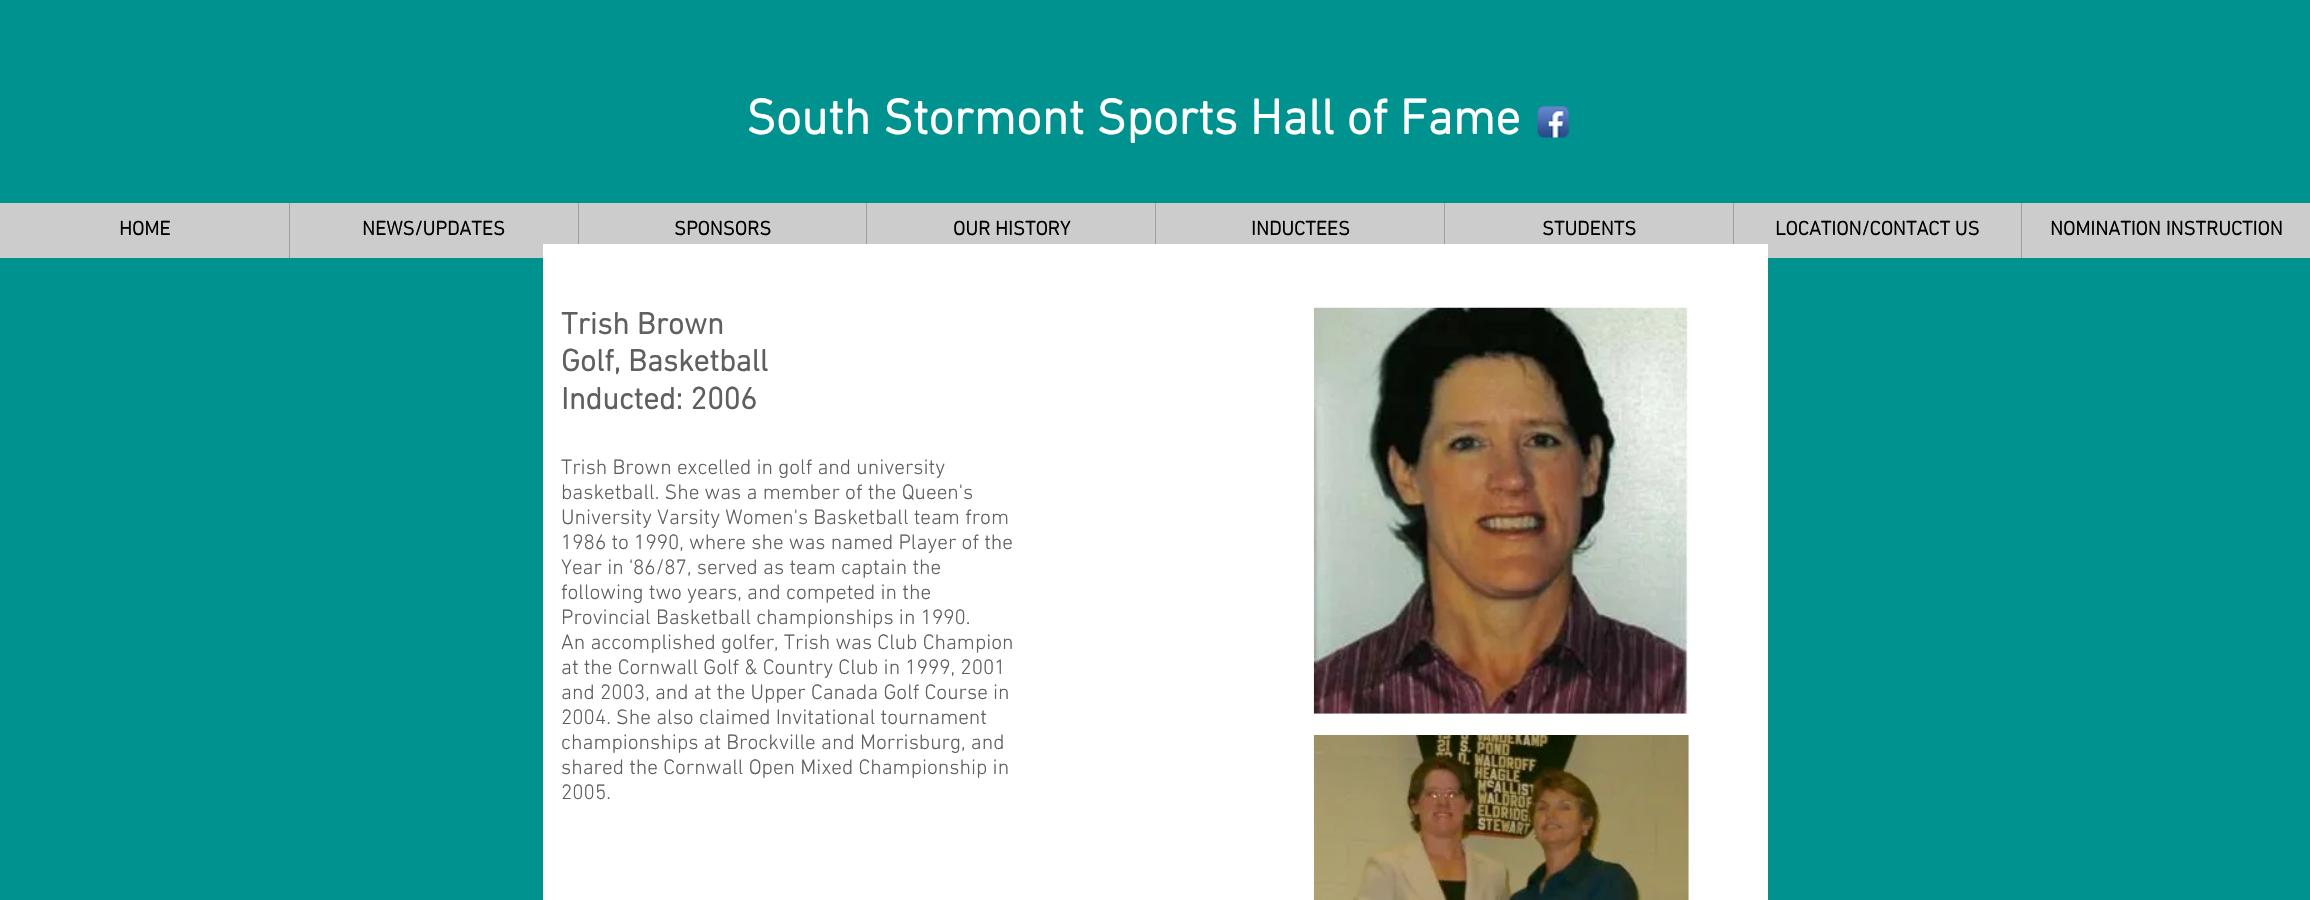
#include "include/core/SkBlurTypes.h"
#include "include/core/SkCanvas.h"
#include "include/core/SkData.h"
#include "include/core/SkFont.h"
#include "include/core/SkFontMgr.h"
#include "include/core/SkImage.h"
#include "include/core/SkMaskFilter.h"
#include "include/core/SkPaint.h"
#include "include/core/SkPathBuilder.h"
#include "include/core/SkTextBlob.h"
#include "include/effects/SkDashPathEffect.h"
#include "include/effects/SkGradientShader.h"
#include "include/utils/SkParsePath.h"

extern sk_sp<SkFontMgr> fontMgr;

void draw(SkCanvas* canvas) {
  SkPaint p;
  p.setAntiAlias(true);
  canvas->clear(SkColorSetRGB(0, 146, 143));
  canvas->drawImageRect(SkImages::DeferredFromEncodedData(SkData::MakeFromFileName("images/1.png")), SkRect::MakeLTRB(1537, 106, 1569, 138), SkSamplingOptions());
  p.setColor(SkColorSetRGB(204, 204, 204));
  canvas->drawRect(SkRect::MakeLTRB(0, 203, 2310, 258), p);
  p.setColor(SkColorSetRGB(160, 160, 159));
  canvas->drawRect(SkRect::MakeLTRB(289, 203, 290, 258), p);
  canvas->drawRect(SkRect::MakeLTRB(578, 203, 579, 244), p);
  canvas->drawRect(SkRect::MakeLTRB(866, 203, 867, 244), p);
  canvas->drawRect(SkRect::MakeLTRB(1155, 203, 1156, 244), p);
  canvas->drawRect(SkRect::MakeLTRB(1444, 203, 1445, 244), p);
  canvas->drawRect(SkRect::MakeLTRB(1733, 203, 1734, 244), p);
  canvas->drawRect(SkRect::MakeLTRB(2021, 203, 2022, 258), p);
  p.setColor(SK_ColorWHITE);
  canvas->drawRect(SkRect::MakeLTRB(543, 244, 1768, 900), p);
  canvas->drawImageRect(SkImages::DeferredFromEncodedData(SkData::MakeFromFileName("images/2.png")), SkRect::MakeLTRB(1313, 307, 1688, 714), SkSamplingOptions());
  canvas->drawImageRect(SkImages::DeferredFromEncodedData(SkData::MakeFromFileName("images/3.png")), SkRect::MakeLTRB(1313, 735, 1689, 900), SkSamplingOptions());
  SkFont font1(fontMgr->matchFamilyStyle("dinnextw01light", SkFontStyle::Bold()), 50);
  font1.setSubpixel(true);
  canvas->drawString("South Stormont Sports Hall of Fame", 746, 134, font1, p);
  SkFont font2(fontMgr->matchFamilyStyle("dinnextw01light", SkFontStyle::Bold()), 20);
  font2.setSubpixel(true);
  p.setColor(SK_ColorBLACK);
  canvas->drawString("HOME", 119, 235, font2, p);
  canvas->drawString("NEWS/UPDATES", 362, 235, font2, p);
  canvas->drawString("SPONSORS", 674, 235, font2, p);
  canvas->drawString("OUR HISTORY", 953, 235, font2, p);
  canvas->drawString("INDUCTEES", 1251, 235, font2, p);
  canvas->drawString("STUDENTS", 1542, 235, font2, p);
  canvas->drawString("LOCATION/CONTACT US", 1775, 235, font2, p);
  canvas->drawString("NOMINATION INSTRUCTION", 2050, 235, font2, p);
  SkFont font3(fontMgr->matchFamilyStyle("dinnextw01light", SkFontStyle::Bold()), 31.25f);
  font3.setSubpixel(true);
  p.setColor(SkColorSetRGB(96, 94, 94));
  canvas->drawString("Trish Brown", 561, 334, font3, p);
  canvas->drawString("Golf, Basketball", 561, 371, font3, p);
  canvas->drawString("Inducted: 2006", 561, 409, font3, p);
  SkFont font4(fontMgr->matchFamilyStyle("dinnextw01light", SkFontStyle(300, SkFontStyle::kNormal_Width, SkFontStyle::kUpright_Slant)), 21.25f);
  font4.setSubpixel(true);
  canvas->drawString("Trish Brown excelled in golf and university", 561, 474, font4, p);
  canvas->drawString("basketball. She was a member of the Queen's", 561, 499, font4, p);
  canvas->drawString("University Varsity Women's Basketball team from", 561, 524, font4, p);
  canvas->drawString("1986 to 1990, where she was named Player of the", 561, 549, font4, p);
  canvas->drawString("Year in '86/87, served as team captain the", 561, 574, font4, p);
  canvas->drawString("following two years, and competed in the", 561, 599, font4, p);
  canvas->drawString("Provincial Basketball championships in 1990.", 561, 624, font4, p);
  canvas->drawString("An accomplished golfer, Trish was Club Champion", 561, 649, font4, p);
  canvas->drawString("at the Cornwall Golf & Country Club in 1999, 2001", 561, 674, font4, p);
  canvas->drawString("and 2003, and at the Upper Canada Golf Course in", 561, 699, font4, p);
  canvas->drawString("2004. She also claimed Invitational tournament", 561, 724, font4, p);
  canvas->drawString("championships at Brockville and Morrisburg, and", 561, 749, font4, p);
  canvas->drawString("shared the Cornwall Open Mixed Championship in", 561, 774, font4, p);
  canvas->drawString("2005.", 561, 799, font4, p);
}
